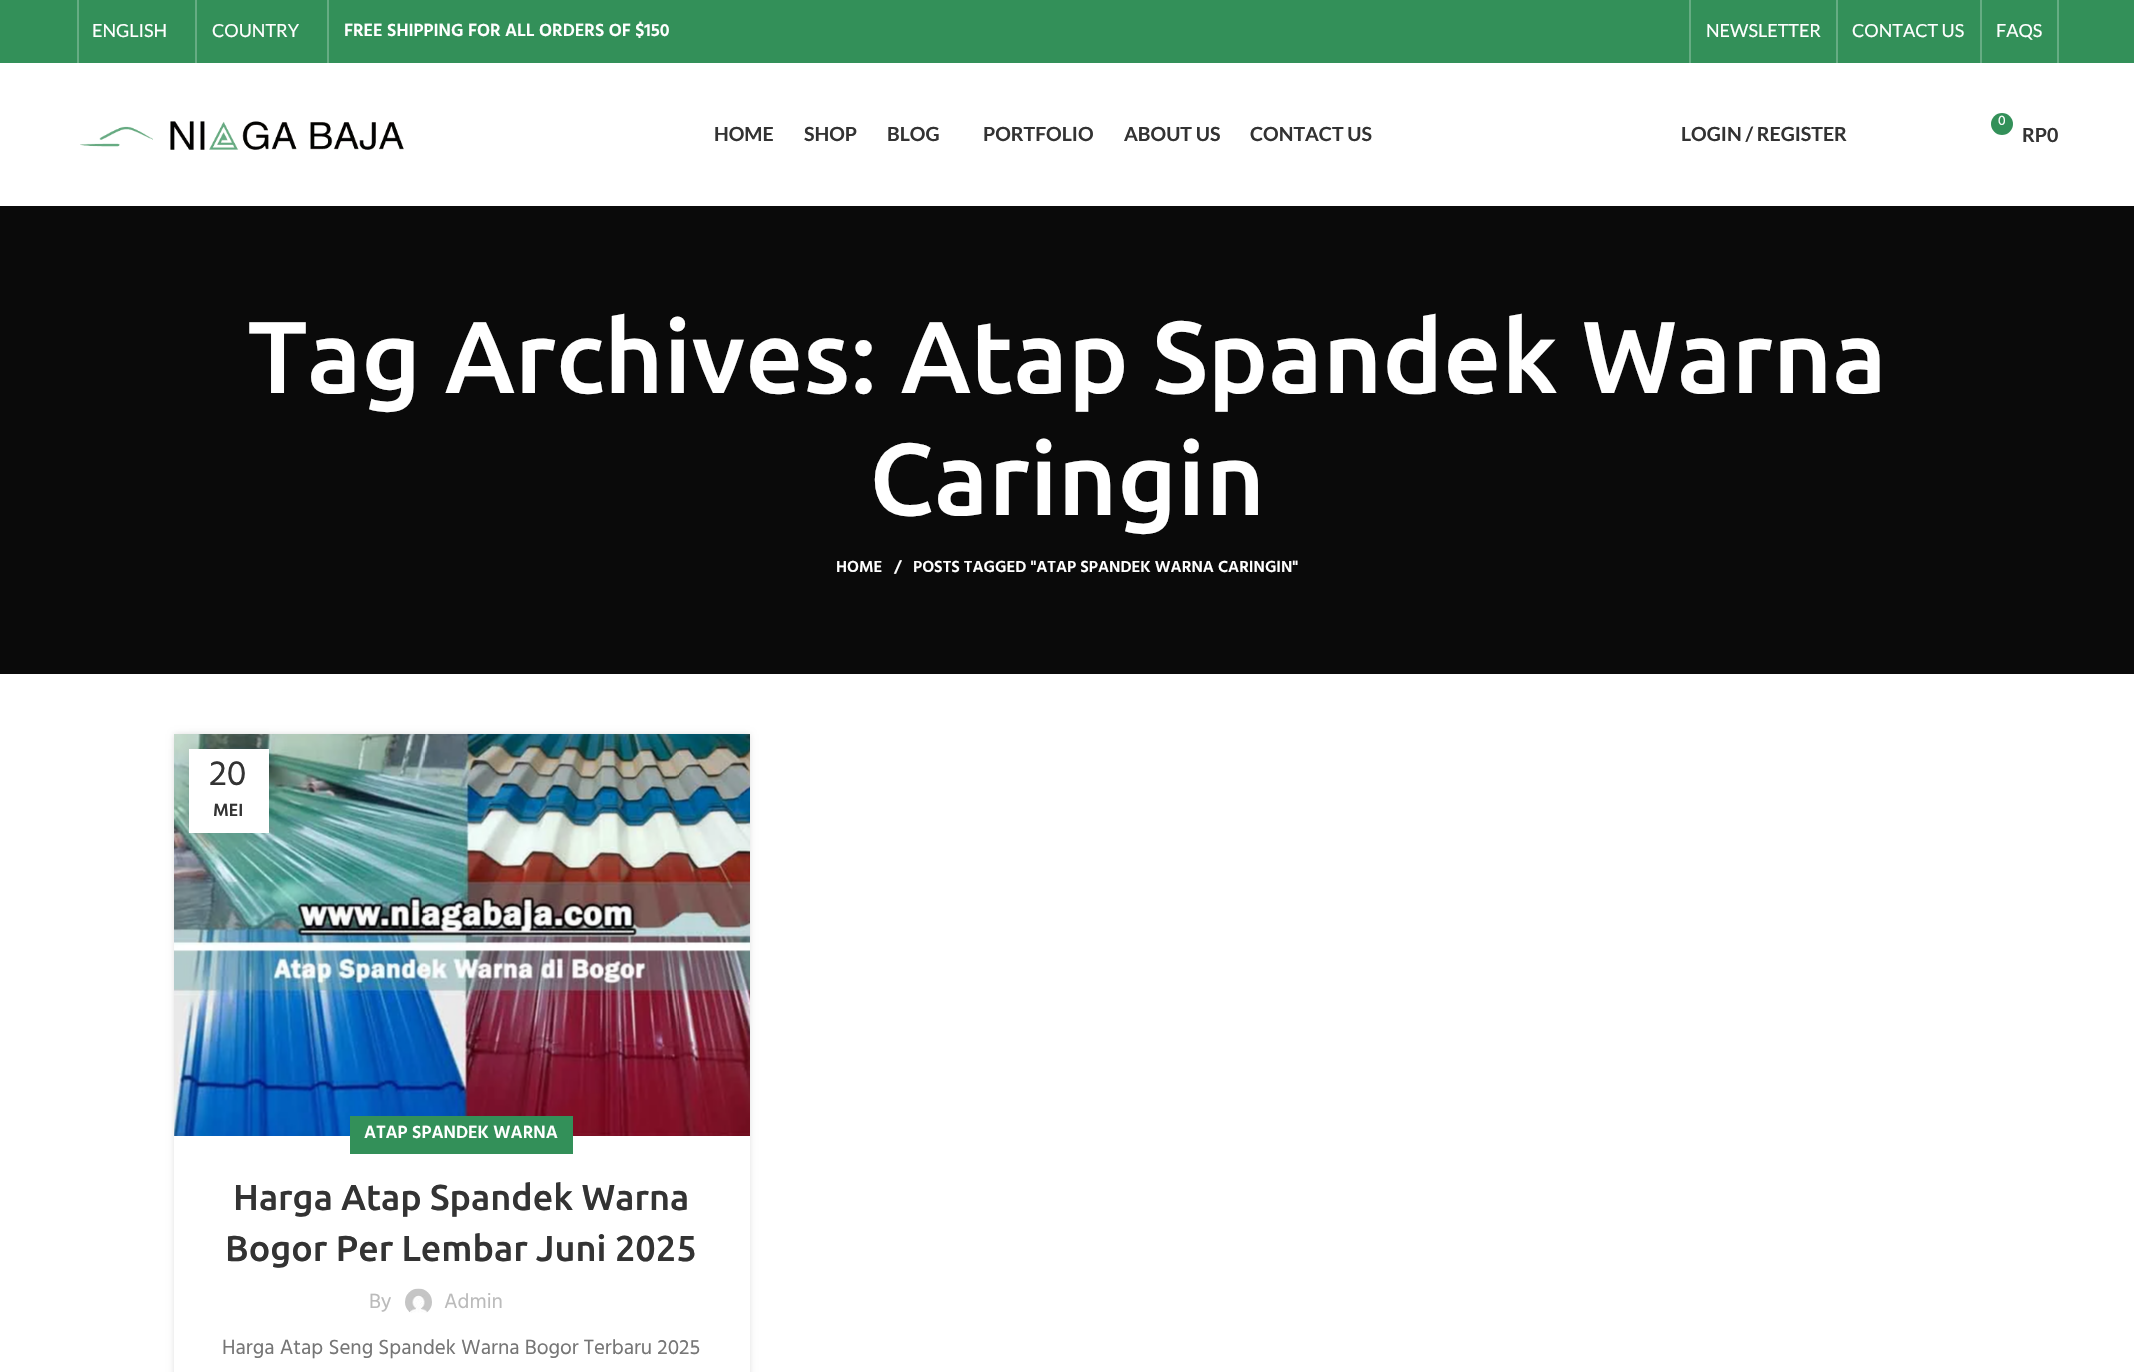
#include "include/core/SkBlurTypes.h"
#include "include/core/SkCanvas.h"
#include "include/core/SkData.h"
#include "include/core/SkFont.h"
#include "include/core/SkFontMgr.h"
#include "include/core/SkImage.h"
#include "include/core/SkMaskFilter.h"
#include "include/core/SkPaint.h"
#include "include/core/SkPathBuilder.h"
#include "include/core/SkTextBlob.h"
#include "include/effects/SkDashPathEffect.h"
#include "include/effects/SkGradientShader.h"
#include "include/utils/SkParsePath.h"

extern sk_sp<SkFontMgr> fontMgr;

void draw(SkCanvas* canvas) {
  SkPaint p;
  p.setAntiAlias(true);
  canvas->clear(SK_ColorWHITE);
  p.setColor(SkColorSetRGB(51, 144, 89));
  canvas->drawRect(SkRect::MakeLTRB(0, 0, 2134, 63), p);
  p.setColor(SkColorSetRGB(102, 172, 131));
  canvas->drawRect(SkRect::MakeLTRB(77, 0, 79, 63), p);
  canvas->drawRect(SkRect::MakeLTRB(195, 0, 197, 63), p);
  canvas->drawRect(SkRect::MakeLTRB(327, 0, 329, 63), p);
  canvas->drawRect(SkRect::MakeLTRB(1689, 0, 1691, 63), p);
  canvas->drawRect(SkRect::MakeLTRB(1836, 0, 1838, 63), p);
  canvas->drawRect(SkRect::MakeLTRB(1980, 0, 1982, 63), p);
  canvas->drawRect(SkRect::MakeLTRB(2057, 0, 2059, 63), p);
  canvas->drawImageRect(SkImages::DeferredFromEncodedData(SkData::MakeFromFileName("images/1.png")), SkRect::MakeLTRB(80, 121, 404, 150), SkSamplingOptions());
  p.setColor(SkColorSetRGB(51, 144, 89));
  canvas->drawCircle(2002, 124, 11, p);
  p.setColor(SkColorSetRGB(10, 10, 10));
  canvas->drawRect(SkRect::MakeLTRB(0, 206, 2134, 674), p);
  canvas->save();
  canvas->clipPath(SkPathBuilder(SkPathFillType::kEvenOdd).moveTo(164, 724).lineTo(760, 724).lineTo(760, 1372).lineTo(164, 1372).close().moveTo(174, 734).lineTo(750, 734).lineTo(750, 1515).lineTo(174, 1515).close().detach(), true);
  p.setColor(SkColorSetARGB(31, 0, 0, 0));
  p.setMaskFilter(SkMaskFilter::MakeBlur(kNormal_SkBlurStyle, 3));
  canvas->drawRect(SkRect::MakeLTRB(174, 734, 750, 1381), p);
  p.setMaskFilter(nullptr);
  canvas->restore();
  canvas->drawImageRect(SkImages::DeferredFromEncodedData(SkData::MakeFromFileName("images/2.png")), SkRect::MakeLTRB(174, 734, 750, 1136), SkSamplingOptions());
  p.setColor(SkColorSetARGB(26, 0, 0, 0));
  p.setMaskFilter(SkMaskFilter::MakeBlur(kNormal_SkBlurStyle, 7));
  canvas->drawRect(SkRect::MakeLTRB(189, 749, 269, 833), p);
  p.setMaskFilter(nullptr);
  p.setColor(SK_ColorWHITE);
  canvas->drawRect(SkRect::MakeLTRB(189, 749, 269, 833), p);
  p.setColor(SkColorSetRGB(51, 144, 89));
  canvas->drawRect(SkRect::MakeLTRB(350, 1116, 573, 1154), p);
  canvas->drawImageRect(SkImages::DeferredFromEncodedData(SkData::MakeFromFileName("images/3.png")), SkRect::MakeLTRB(405, 1288, 432, 1313), SkSamplingOptions());
  SkFont font1(fontMgr->matchFamilyStyle("Lato", SkFontStyle::Normal()), 18);
  font1.setSubpixel(true);
  p.setColor(SK_ColorWHITE);
  canvas->drawString("ENGLISH", 92, 37, font1, p);
  canvas->drawString("COUNTRY", 212, 37, font1, p);
  SkFont font2(fontMgr->matchFamilyStyle("Hind", SkFontStyle(600, SkFontStyle::kNormal_Width, SkFontStyle::kUpright_Slant)), 18);
  font2.setSubpixel(true);
  canvas->drawString("FREE SHIPPING FOR ALL ORDERS OF $150", 344, 36, font2, p);
  canvas->drawString("NEWSLETTER", 1706, 37, font1, p);
  canvas->drawString("CONTACT US", 1852, 37, font1, p);
  canvas->drawString("FAQS", 1996, 37, font1, p);
  SkFont font3(fontMgr->matchFamilyStyle("Lato", SkFontStyle::Bold()), 19.5f);
  font3.setSubpixel(true);
  p.setColor(SkColorSetRGB(51, 51, 51));
  canvas->drawString("HOME", 714, 141, font3, p);
  canvas->drawString("SHOP", 804, 141, font3, p);
  canvas->drawString("BLOG", 887, 141, font3, p);
  canvas->drawString("PORTFOLIO", 983, 141, font3, p);
  canvas->drawString("ABOUT US", 1124, 141, font3, p);
  canvas->drawString("CONTACT US", 1250, 141, font3, p);
  canvas->drawString("LOGIN / REGISTER", 1681, 141, font3, p);
  SkFont font4(fontMgr->matchFamilyStyle("Hind", SkFontStyle::Normal()), 14);
  font4.setSubpixel(true);
  p.setColor(SK_ColorWHITE);
  canvas->drawString("0", 1998, 125, font4, p);
  p.setColor(SkColorSetRGB(51, 51, 51));
  canvas->drawString("RP0", 2022, 142, font3, p);
  SkFont font5(fontMgr->matchFamilyStyle("Ubuntu", SkFontStyle(500, SkFontStyle::kNormal_Width, SkFontStyle::kUpright_Slant)), 102);
  font5.setSubpixel(true);
  p.setColor(SK_ColorWHITE);
  canvas->drawString("Tag Archives: Atap Spandek Warna", 248, 393, font5, p);
  canvas->drawString("Caringin", 869, 515, font5, p);
  SkFont font6(fontMgr->matchFamilyStyle("Hind", SkFontStyle(600, SkFontStyle::kNormal_Width, SkFontStyle::kUpright_Slant)), 16.5f);
  font6.setSubpixel(true);
  canvas->drawString("HOME", 836, 572, font6, p);
  canvas->drawString("/", 894, 572, font6, p);
  canvas->drawString("POSTS TAGGED \"ATAP SPANDEK WARNA CARINGIN\"", 913, 572, font6, p);
  SkFont font7(fontMgr->matchFamilyStyle("Hind", SkFontStyle::Normal()), 36);
  font7.setSubpixel(true);
  p.setColor(SkColorSetRGB(51, 51, 51));
  canvas->drawString("20", 209, 785, font7, p);
  canvas->drawString("MEI", 213, 816, font2, p);
  p.setColor(SK_ColorWHITE);
  canvas->drawString("ATAP SPANDEK WARNA", 364, 1138, font2, p);
  SkFont font8(fontMgr->matchFamilyStyle("Ubuntu", SkFontStyle(500, SkFontStyle::kNormal_Width, SkFontStyle::kUpright_Slant)), 36);
  font8.setSubpixel(true);
  p.setColor(SkColorSetRGB(51, 51, 51));
  canvas->drawString("Harga Atap Spandek Warna", 233, 1210, font8, p);
  canvas->drawString("Bogor Per Lembar Juni 2025", 225, 1261, font8, p);
  SkFont font9(fontMgr->matchFamilyStyle("Hind", SkFontStyle::Normal()), 21);
  font9.setSubpixel(true);
  p.setColor(SkColorSetRGB(187, 187, 187));
  canvas->drawString("By", 369, 1308, font9, p);
  canvas->drawString("Admin", 444, 1308, font9, p);
  p.setColor(SkColorSetRGB(118, 118, 118));
  canvas->drawString("Harga Atap Seng Spandek Warna Bogor Terbaru 2025", 222, 1354, font9, p);
}
